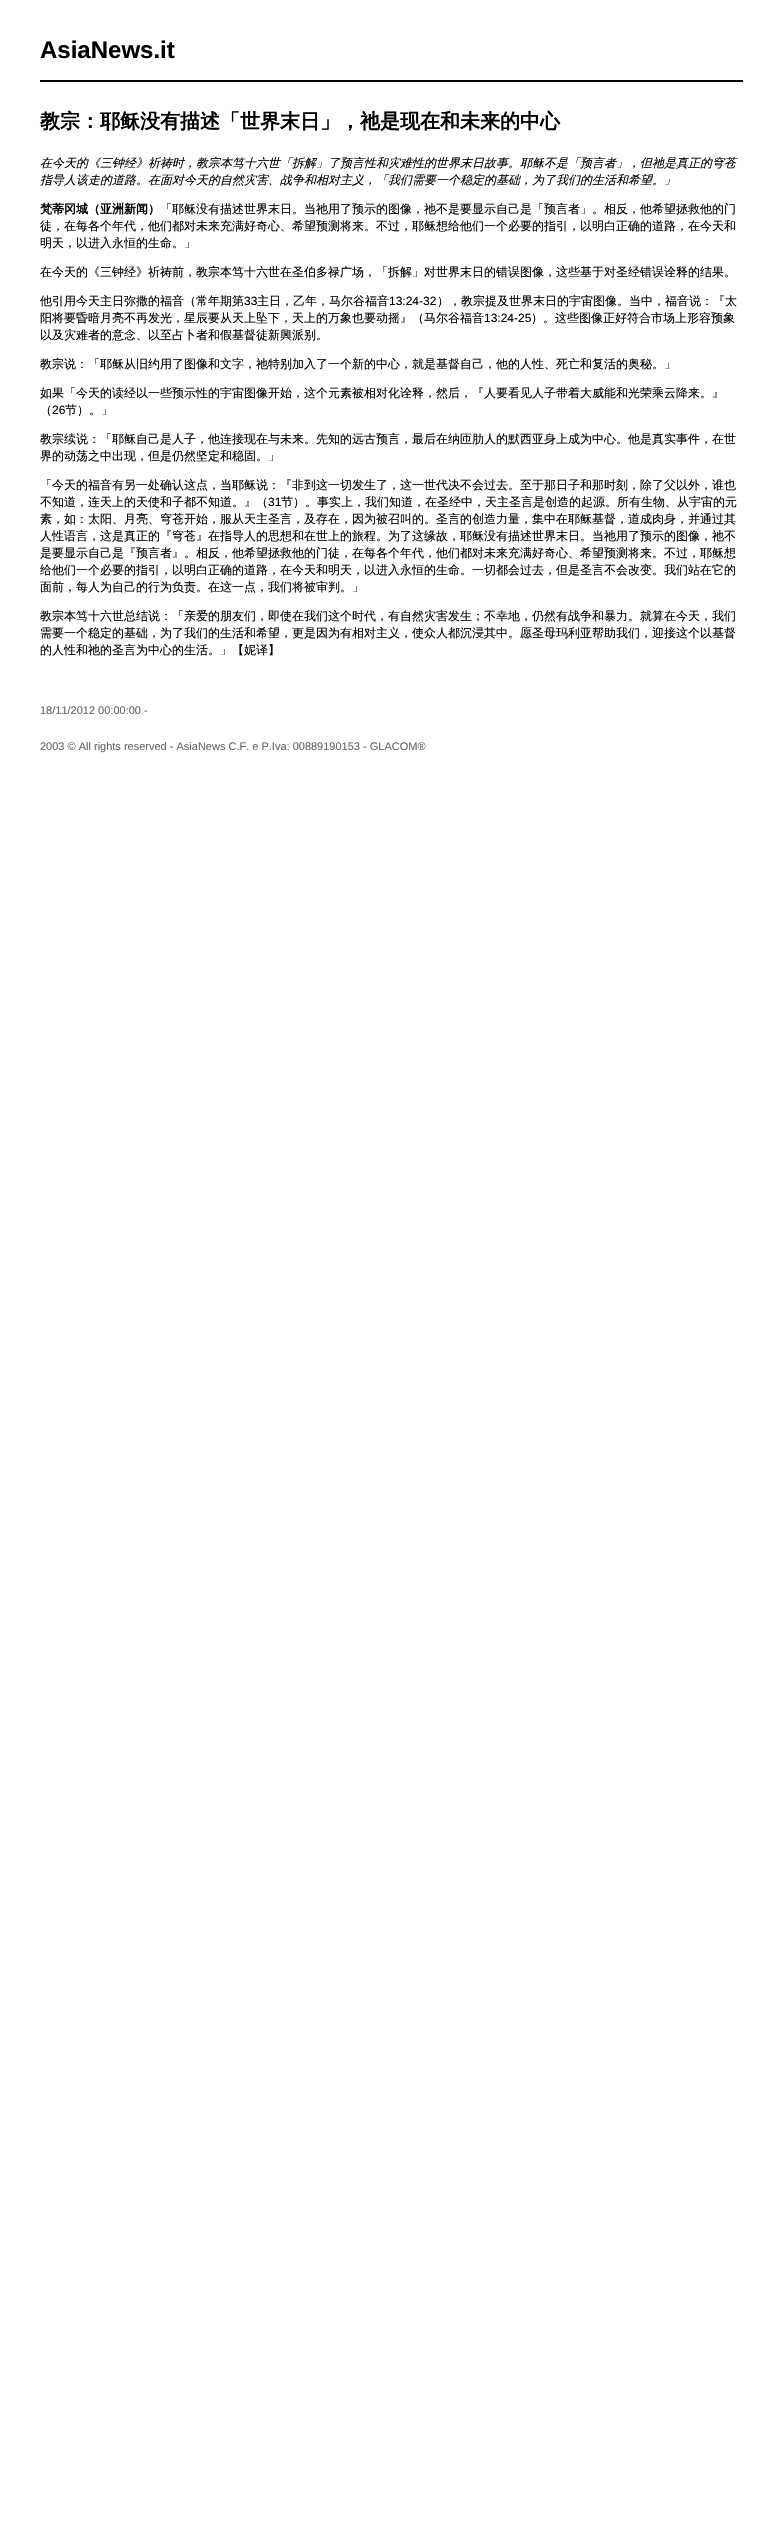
#include "include/core/SkBlurTypes.h"
#include "include/core/SkCanvas.h"
#include "include/core/SkData.h"
#include "include/core/SkFont.h"
#include "include/core/SkFontMgr.h"
#include "include/core/SkImage.h"
#include "include/core/SkMaskFilter.h"
#include "include/core/SkPaint.h"
#include "include/core/SkPathBuilder.h"
#include "include/core/SkTextBlob.h"
#include "include/effects/SkDashPathEffect.h"
#include "include/effects/SkGradientShader.h"
#include "include/utils/SkParsePath.h"

extern sk_sp<SkFontMgr> fontMgr;

void draw(SkCanvas* canvas) {
  SkPaint p;
  p.setAntiAlias(true);
  canvas->clear(SK_ColorWHITE);
  p.setColor(SK_ColorBLACK);
  canvas->drawRect(SkRect::MakeLTRB(40, 80, 743, 82), p);
  SkFont font1(fontMgr->matchFamilyStyle("Liberation Sans", SkFontStyle::Bold()), 24);
  font1.setSubpixel(true);
  canvas->drawString("AsiaNews.it", 40, 58, font1, p);
  SkFont font2(fontMgr->matchFamilyStyle("WenQuanYi Zen Hei", SkFontStyle::Bold()), 20);
  font2.setSubpixel(true);
  canvas->drawString("教宗：耶稣没有描述「世界末日」，祂是现在和未来的中心", 40, 128, font2, p);
  SkFont font3(fontMgr->matchFamilyStyle("WenQuanYi Zen Hei", SkFontStyle(500, SkFontStyle::kNormal_Width, SkFontStyle::kItalic_Slant)), 12);
  font3.setSubpixel(true);
  canvas->drawString("在今天的《三钟经》祈祷时，教宗本笃十六世「拆解」了预言性和灾难性的世界末日故事。耶稣不是「预言者」，但祂是真正的穹苍", 40, 167, font3, p);
  canvas->drawString("指导人该走的道路。在面对今天的自然灾害、战争和相对主义，「我们需要一个稳定的基础，为了我们的生活和希望。」", 40, 184, font3, p);
  SkFont font4(fontMgr->matchFamilyStyle("WenQuanYi Zen Hei", SkFontStyle::Bold()), 12);
  font4.setSubpixel(true);
  canvas->drawString("梵蒂冈城（亚洲新闻）", 40, 213, font4, p);
  SkFont font5(fontMgr->matchFamilyStyle("WenQuanYi Zen Hei", SkFontStyle(500, SkFontStyle::kNormal_Width, SkFontStyle::kUpright_Slant)), 12);
  font5.setSubpixel(true);
  canvas->drawString("「耶稣没有描述世界末日。当祂用了预示的图像，祂不是要显示自己是「预言者」。相反，他希望拯救他的门", 160, 213, font5, p);
  canvas->drawString("徒，在每各个年代，他们都对未来充满好奇心、希望预测将来。不过，耶稣想给他们一个必要的指引，以明白正确的道路，在今天和", 40, 230, font5, p);
  canvas->drawString("明天，以进入永恒的生命。」", 40, 247, font5, p);
  canvas->drawString("在今天的《三钟经》祈祷前，教宗本笃十六世在圣伯多禄广场，「拆解」对世界末日的错误图像，这些基于对圣经错误诠释的结果。", 40, 276, font5, p);
  canvas->drawString("他引用今天主日弥撒的福音（常年期第", 40, 305, font5, p);
  SkFont font6(fontMgr->matchFamilyStyle("Liberation Sans", SkFontStyle::Normal()), 12);
  font6.setSubpixel(true);
  canvas->drawString("33", 244, 305, font6, p);
  canvas->drawString("主日，乙年，马尔谷福音", 257, 305, font5, p);
  canvas->drawString("13:24-32", 389, 305, font6, p);
  canvas->drawString("），教宗提及世界末日的宇宙图像。当中，福音说：『太", 437, 305, font5, p);
  canvas->drawString("阳将要昏暗月亮不再发光，星辰要从天上坠下，天上的万象也要动摇』（马尔谷福音", 40, 322, font5, p);
  canvas->drawString("13:24-25", 484, 322, font6, p);
  canvas->drawString("）。这些图像正好符合市场上形容预象", 531, 322, font5, p);
  canvas->drawString("以及灾难者的意念、以至占卜者和假基督徒新興派别。", 40, 339, font5, p);
  canvas->drawString("教宗说：「耶稣从旧约用了图像和文字，祂特别加入了一个新的中心，就是基督自己，他的人性、死亡和复活的奥秘。」", 40, 368, font5, p);
  canvas->drawString("如果「今天的读经以一些预示性的宇宙图像开始，这个元素被相对化诠释，然后，『人要看见人子带着大威能和光荣乘云降来。』", 40, 397, font5, p);
  canvas->drawString("（", 40, 414, font5, p);
  canvas->drawString("26", 52, 414, font6, p);
  canvas->drawString("节）。」", 65, 414, font5, p);
  canvas->drawString("教宗续说：「耶稣自己是人子，他连接现在与未来。先知的远古预言，最后在纳匝肋人的默西亚身上成为中心。他是真实事件，在世", 40, 443, font5, p);
  canvas->drawString("界的动荡之中出现，但是仍然坚定和稳固。」", 40, 460, font5, p);
  canvas->drawString("「今天的福音有另一处确认这点，当耶稣说：『非到这一切发生了，这一世代决不会过去。至于那日子和那时刻，除了父以外，谁也", 40, 489, font5, p);
  canvas->drawString("不知道，连天上的天使和子都不知道。』（", 40, 506, font5, p);
  canvas->drawString("31", 268, 506, font6, p);
  canvas->drawString("节）。事实上，我们知道，在圣经中，天主圣言是创造的起源。所有生物、从宇宙的元", 281, 506, font5, p);
  canvas->drawString("素，如：太阳、月亮、穹苍开始，服从天主圣言，及存在，因为被召叫的。圣言的创造力量，集中在耶稣基督，道成肉身，并通过其", 40, 523, font5, p);
  canvas->drawString("人性语言，这是真正的『穹苍』在指导人的思想和在世上的旅程。为了这缘故，耶稣没有描述世界末日。当祂用了预示的图像，祂不", 40, 540, font5, p);
  canvas->drawString("是要显示自己是『预言者』。相反，他希望拯救他的门徒，在每各个年代，他们都对未来充满好奇心、希望预测将来。不过，耶稣想", 40, 557, font5, p);
  canvas->drawString("给他们一个必要的指引，以明白正确的道路，在今天和明天，以进入永恒的生命。一切都会过去，但是圣言不会改变。我们站在它的", 40, 574, font5, p);
  canvas->drawString("面前，每人为自己的行为负责。在这一点，我们将被审判。」", 40, 591, font5, p);
  canvas->drawString("教宗本笃十六世总结说：「亲爱的朋友们，即使在我们这个时代，有自然灾害发生；不幸地，仍然有战争和暴力。就算在今天，我们", 40, 620, font5, p);
  canvas->drawString("需要一个稳定的基础，为了我们的生活和希望，更是因为有相对主义，使众人都沉浸其中。愿圣母玛利亚帮助我们，迎接这个以基督", 40, 637, font5, p);
  canvas->drawString("的人性和祂的圣言为中心的生活。」【妮译】", 40, 654, font5, p);
  SkFont font7(fontMgr->matchFamilyStyle("Liberation Sans", SkFontStyle::Normal()), 11);
  font7.setSubpixel(true);
  p.setColor(SkColorSetRGB(102, 102, 102));
  canvas->drawString("18/11/2012 00:00:00 -", 40, 714, font7, p);
  canvas->drawString("2003 © All rights reserved - AsiaNews C.F. e P.Iva: 00889190153 - GLACOM®", 40, 750, font7, p);
}
